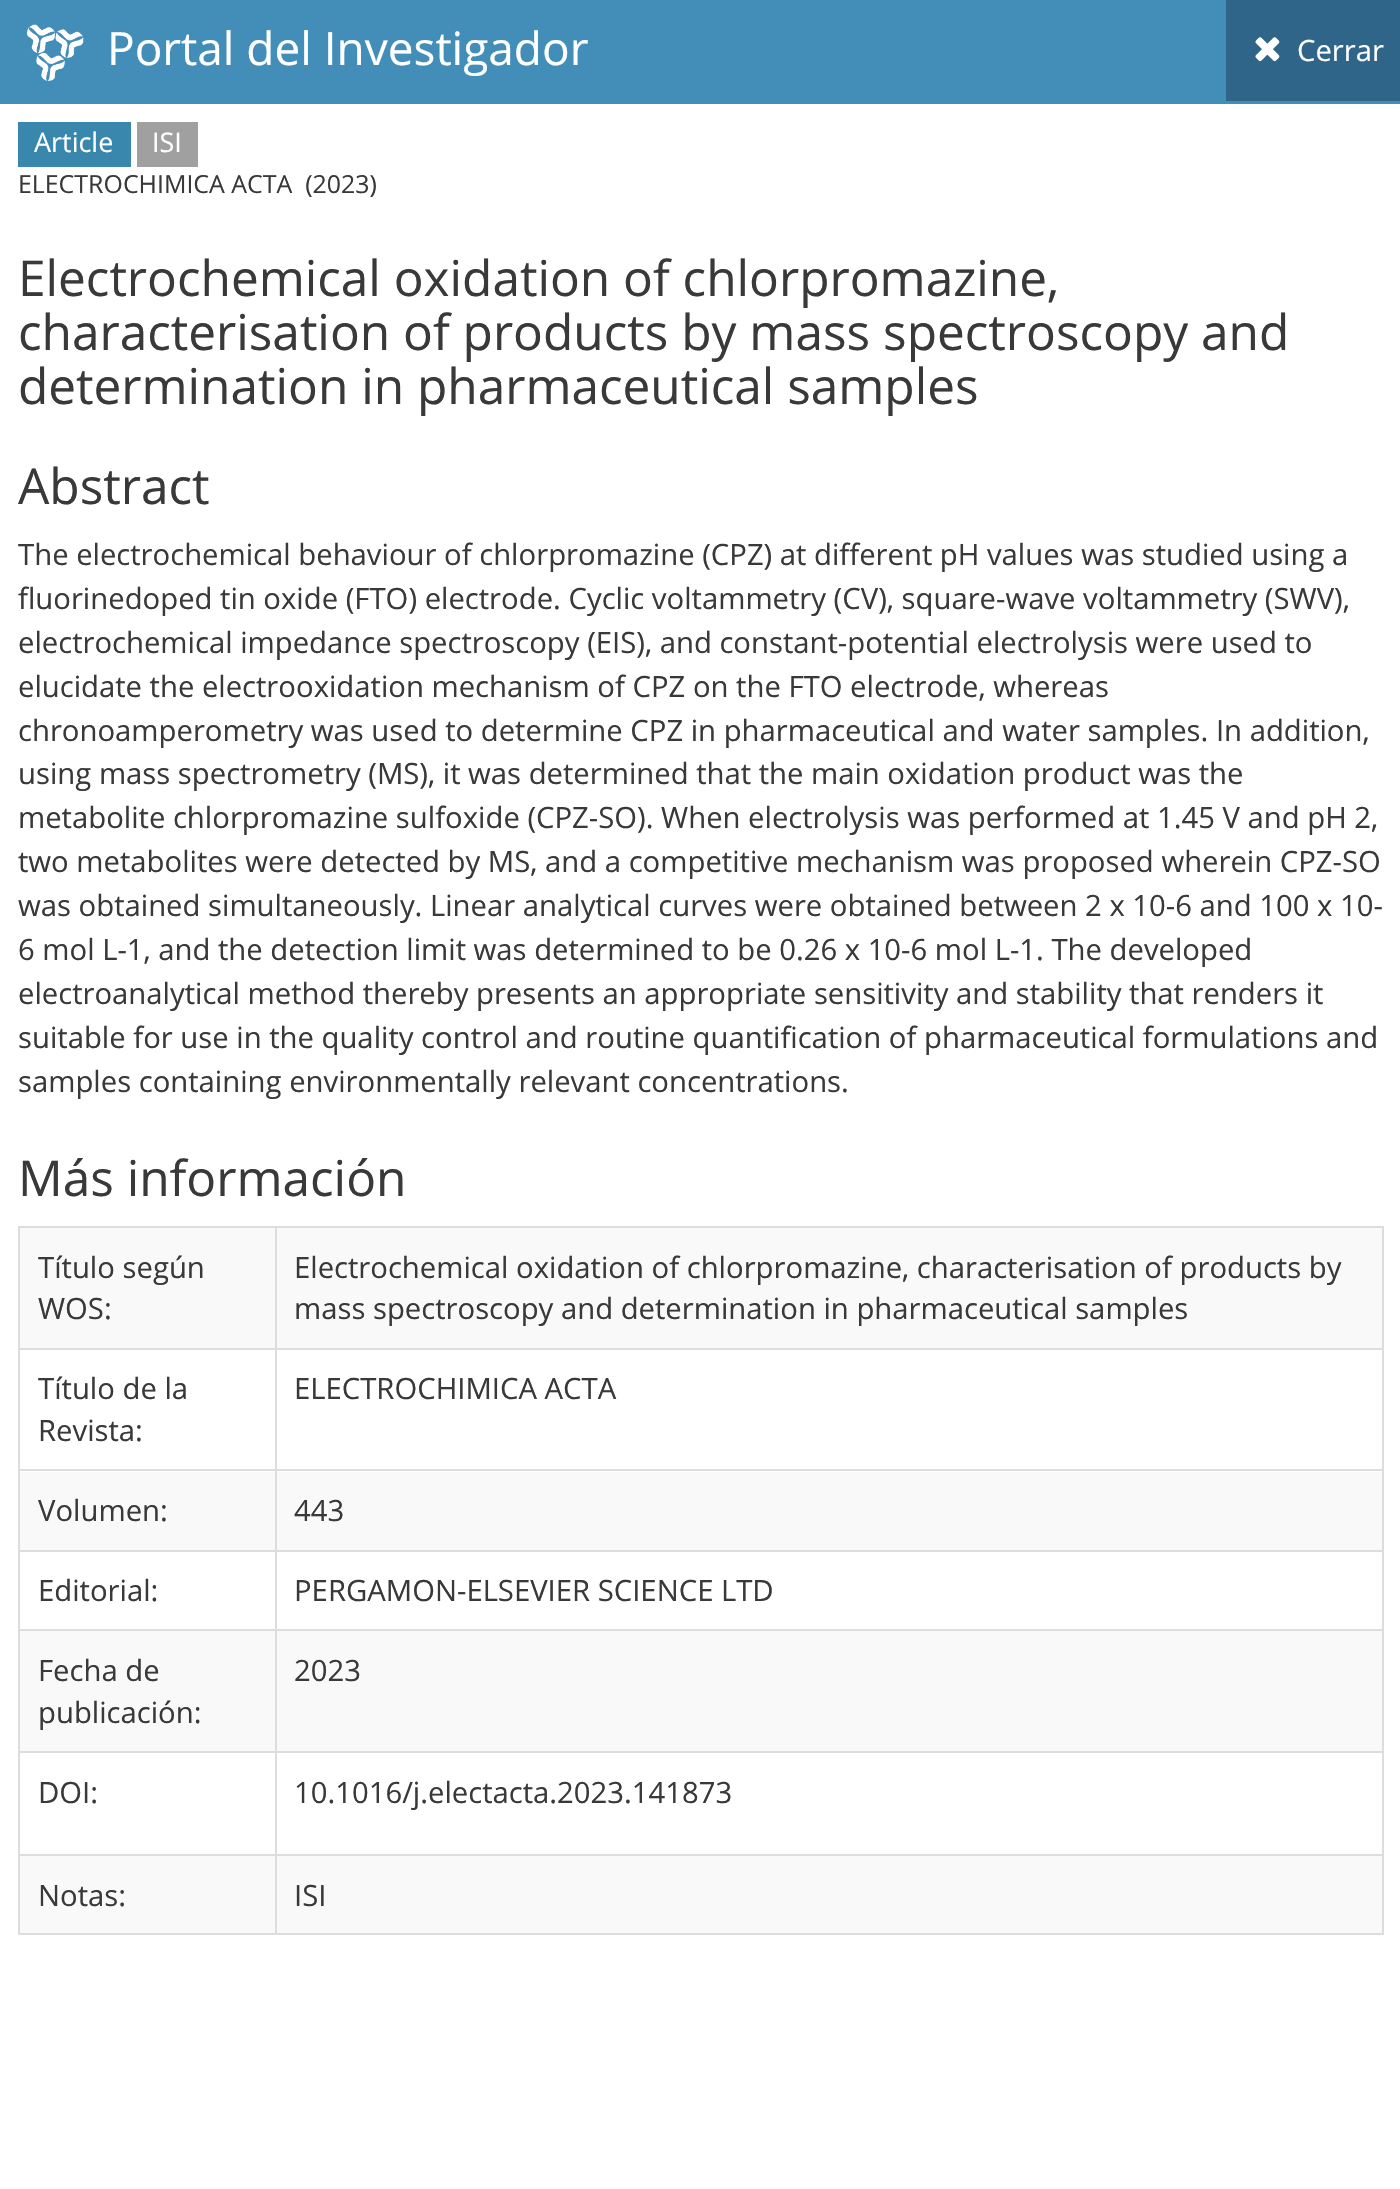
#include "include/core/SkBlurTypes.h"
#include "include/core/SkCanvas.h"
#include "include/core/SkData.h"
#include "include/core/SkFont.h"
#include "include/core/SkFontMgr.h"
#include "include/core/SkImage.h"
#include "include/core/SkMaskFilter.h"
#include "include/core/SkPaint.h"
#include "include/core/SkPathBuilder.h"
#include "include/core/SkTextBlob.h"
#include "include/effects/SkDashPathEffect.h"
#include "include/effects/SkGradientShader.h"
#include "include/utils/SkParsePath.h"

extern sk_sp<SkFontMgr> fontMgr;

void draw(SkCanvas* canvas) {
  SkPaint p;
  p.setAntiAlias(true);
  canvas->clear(SK_ColorWHITE);
  p.setColor(SkColorSetRGB(67, 142, 185));
  canvas->drawRect(SkRect::MakeLTRB(0, 0, 1400, 104), p);
  canvas->drawImageRect(SkImages::DeferredFromEncodedData(SkData::MakeFromFileName("images/1.png")), SkRect::MakeLTRB(27, 24, 84, 81), SkSamplingOptions());
  p.setColor(SkColorSetRGB(46, 101, 137));
  canvas->drawRect(SkRect::MakeLTRB(1226, 0, 1400, 101), p);
  canvas->drawImageRect(SkImages::DeferredFromEncodedData(SkData::MakeFromFileName("images/2.png")), SkRect::MakeLTRB(1255, 37, 1280, 62), SkSamplingOptions());
  p.setColor(SkColorSetRGB(58, 135, 173));
  canvas->drawRect(SkRect::MakeLTRB(18, 122, 131, 167), p);
  p.setColor(SkColorSetRGB(160, 160, 160));
  canvas->drawRect(SkRect::MakeLTRB(137, 122, 198, 167), p);
  p.setColor(SkColorSetRGB(221, 221, 221));
  canvas->drawRect(SkRect::MakeLTRB(18, 1226, 1384, 1228), p);
  canvas->drawRect(SkRect::MakeLTRB(1382, 1226, 1384, 1935), p);
  canvas->drawRect(SkRect::MakeLTRB(18, 1933, 1384, 1935), p);
  canvas->drawRect(SkRect::MakeLTRB(18, 1226, 20, 1935), p);
  p.setColor(SkColorSetRGB(249, 249, 249));
  canvas->drawRect(SkRect::MakeLTRB(20, 1228, 1382, 1348), p);
  p.setColor(SkColorSetRGB(221, 221, 221));
  canvas->drawRect(SkRect::MakeLTRB(275, 1348, 1384, 1350), p);
  canvas->drawRect(SkRect::MakeLTRB(275, 1469, 1384, 1471), p);
  p.setColor(SkColorSetRGB(249, 249, 249));
  canvas->drawRect(SkRect::MakeLTRB(20, 1472, 1382, 1550), p);
  p.setColor(SkColorSetRGB(221, 221, 221));
  canvas->drawRect(SkRect::MakeLTRB(275, 1550, 1384, 1552), p);
  canvas->drawRect(SkRect::MakeLTRB(275, 1629, 1384, 1631), p);
  p.setColor(SkColorSetRGB(249, 249, 249));
  canvas->drawRect(SkRect::MakeLTRB(20, 1631, 1382, 1751), p);
  p.setColor(SkColorSetRGB(221, 221, 221));
  canvas->drawRect(SkRect::MakeLTRB(275, 1751, 1384, 1753), p);
  canvas->drawRect(SkRect::MakeLTRB(275, 1854, 1384, 1856), p);
  p.setColor(SkColorSetRGB(249, 249, 249));
  canvas->drawRect(SkRect::MakeLTRB(20, 1856, 1382, 1933), p);
  p.setColor(SkColorSetRGB(221, 221, 221));
  canvas->drawRect(SkRect::MakeLTRB(275, 1854, 277, 1935), p);
  canvas->drawRect(SkRect::MakeLTRB(18, 1854, 277, 1856), p);
  canvas->drawRect(SkRect::MakeLTRB(275, 1751, 277, 1856), p);
  canvas->drawRect(SkRect::MakeLTRB(18, 1751, 277, 1753), p);
  canvas->drawRect(SkRect::MakeLTRB(275, 1629, 277, 1753), p);
  canvas->drawRect(SkRect::MakeLTRB(18, 1629, 277, 1631), p);
  canvas->drawRect(SkRect::MakeLTRB(275, 1550, 277, 1631), p);
  canvas->drawRect(SkRect::MakeLTRB(18, 1550, 277, 1552), p);
  canvas->drawRect(SkRect::MakeLTRB(275, 1469, 277, 1553), p);
  canvas->drawRect(SkRect::MakeLTRB(18, 1469, 277, 1471), p);
  canvas->drawRect(SkRect::MakeLTRB(275, 1348, 277, 1472), p);
  canvas->drawRect(SkRect::MakeLTRB(18, 1348, 277, 1350), p);
  canvas->drawRect(SkRect::MakeLTRB(275, 1226, 277, 1350), p);
  SkFont font1(fontMgr->matchFamilyStyle("Open Sans", SkFontStyle::Normal()), 45.9f);
  font1.setSubpixel(true);
  p.setColor(SK_ColorWHITE);
  canvas->drawString("Portal del Investigador", 107, 65, font1, p);
  SkFont font2(fontMgr->matchFamilyStyle("Open Sans", SkFontStyle::Normal()), 29.25f);
  font2.setSubpixel(true);
  canvas->drawString("Cerrar", 1297, 61, font2, p);
  SkFont font3(fontMgr->matchFamilyStyle("Open Sans", SkFontStyle::Normal()), 27);
  font3.setSubpixel(true);
  canvas->drawString("Article", 34, 152, font3, p);
  canvas->drawString("ISI", 152, 152, font3, p);
  SkFont font4(fontMgr->matchFamilyStyle("Open Sans", SkFontStyle::Normal()), 24.9f);
  font4.setSubpixel(true);
  p.setColor(SkColorSetRGB(57, 57, 57));
  canvas->drawString("ELECTROCHIMICA ACTA  (2023)", 18, 193, font4, p);
  SkFont font5(fontMgr->matchFamilyStyle("Open Sans", SkFontStyle::Normal()), 49.5f);
  font5.setSubpixel(true);
  canvas->drawString("Electrochemical oxidation of chlorpromazine,", 18, 296, font5, p);
  canvas->drawString("characterisation of products by mass spectroscopy and", 18, 350, font5, p);
  canvas->drawString("determination in pharmaceutical samples", 18, 404, font5, p);
  canvas->drawString("Abstract", 18, 504, font5, p);
  canvas->drawString("The electrochemical behaviour of chlorpromazine (CPZ) at different pH values was studied using a", 18, 565, font2, p);
  canvas->drawString("fluorinedoped tin oxide (FTO) electrode. Cyclic voltammetry (CV), square-wave voltammetry (SWV),", 18, 609, font2, p);
  canvas->drawString("electrochemical impedance spectroscopy (EIS), and constant-potential electrolysis were used to", 18, 653, font2, p);
  canvas->drawString("elucidate the electrooxidation mechanism of CPZ on the FTO electrode, whereas", 18, 697, font2, p);
  canvas->drawString("chronoamperometry was used to determine CPZ in pharmaceutical and water samples. In addition,", 18, 741, font2, p);
  canvas->drawString("using mass spectrometry (MS), it was determined that the main oxidation product was the", 18, 784, font2, p);
  canvas->drawString("metabolite chlorpromazine sulfoxide (CPZ-SO). When electrolysis was performed at 1.45 V and pH 2,", 18, 828, font2, p);
  canvas->drawString("two metabolites were detected by MS, and a competitive mechanism was proposed wherein CPZ-SO", 18, 872, font2, p);
  canvas->drawString("was obtained simultaneously. Linear analytical curves were obtained between 2 x 10-6 and 100 x 10-", 18, 916, font2, p);
  canvas->drawString("6 mol L-1, and the detection limit was determined to be 0.26 x 10-6 mol L-1. The developed", 18, 960, font2, p);
  canvas->drawString("electroanalytical method thereby presents an appropriate sensitivity and stability that renders it", 18, 1004, font2, p);
  canvas->drawString("suitable for use in the quality control and routine quantification of pharmaceutical formulations and", 18, 1048, font2, p);
  canvas->drawString("samples containing environmentally relevant concentrations.", 18, 1092, font2, p);
  canvas->drawString("Más información", 18, 1196, font5, p);
  canvas->drawString("Título según", 38, 1278, font2, p);
  canvas->drawString("WOS:", 38, 1319, font2, p);
  canvas->drawString("Electrochemical oxidation of chlorpromazine, characterisation of products by", 294, 1278, font2, p);
  canvas->drawString("mass spectroscopy and determination in pharmaceutical samples", 294, 1319, font2, p);
  canvas->drawString("Título de la", 38, 1399, font2, p);
  canvas->drawString("Revista:", 38, 1441, font2, p);
  canvas->drawString("ELECTROCHIMICA ACTA", 294, 1399, font2, p);
  canvas->drawString("Volumen:", 38, 1521, font2, p);
  canvas->drawString("443", 294, 1521, font2, p);
  canvas->drawString("Editorial:", 38, 1601, font2, p);
  canvas->drawString("PERGAMON-ELSEVIER SCIENCE LTD", 294, 1601, font2, p);
  canvas->drawString("Fecha de", 38, 1681, font2, p);
  canvas->drawString("publicación:", 38, 1723, font2, p);
  canvas->drawString("2023", 294, 1681, font2, p);
  canvas->drawString("DOI:", 38, 1803, font2, p);
  canvas->drawString("10.1016/j.electacta.2023.141873", 294, 1803, font2, p);
  canvas->drawString("Notas:", 38, 1906, font2, p);
  canvas->drawString("ISI", 294, 1906, font2, p);
}
